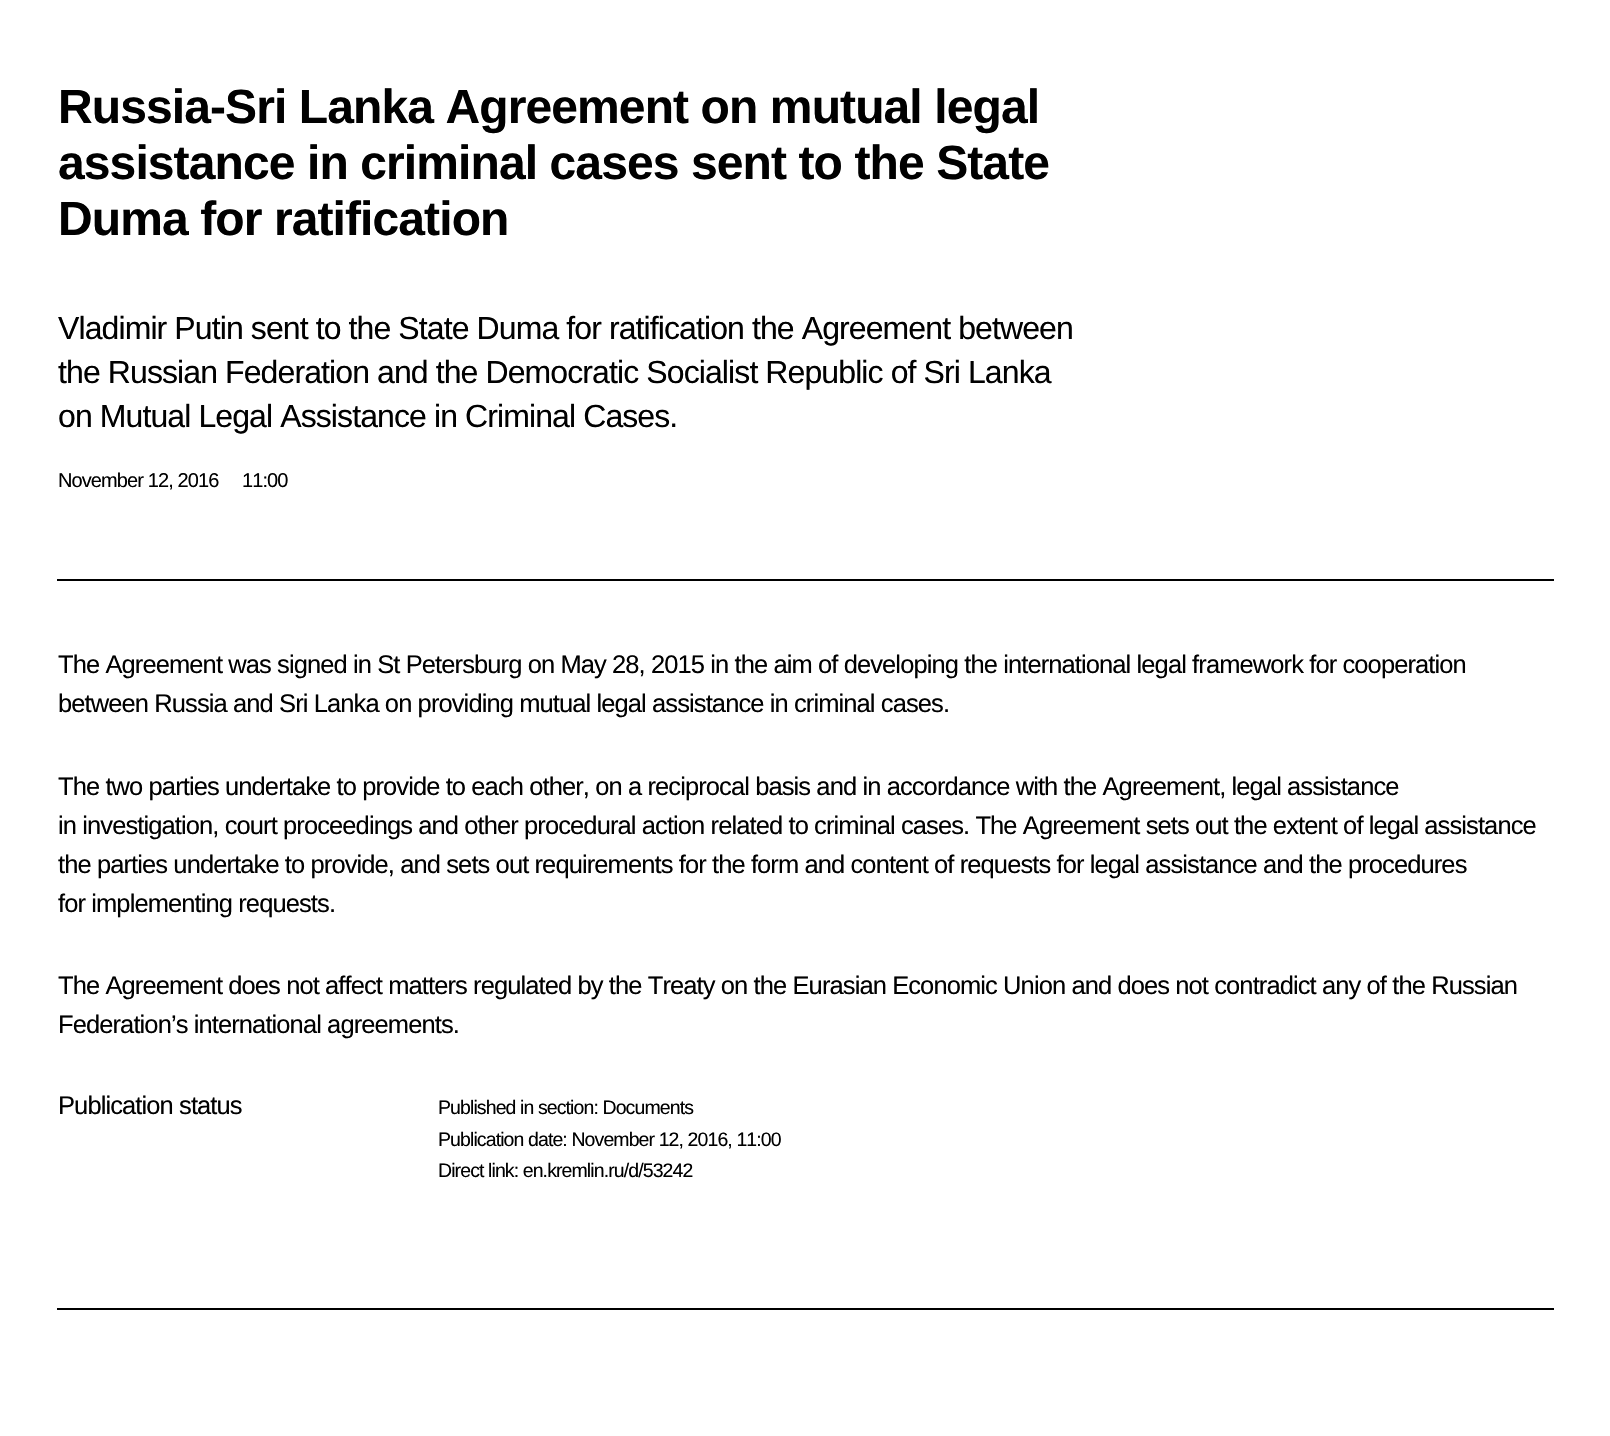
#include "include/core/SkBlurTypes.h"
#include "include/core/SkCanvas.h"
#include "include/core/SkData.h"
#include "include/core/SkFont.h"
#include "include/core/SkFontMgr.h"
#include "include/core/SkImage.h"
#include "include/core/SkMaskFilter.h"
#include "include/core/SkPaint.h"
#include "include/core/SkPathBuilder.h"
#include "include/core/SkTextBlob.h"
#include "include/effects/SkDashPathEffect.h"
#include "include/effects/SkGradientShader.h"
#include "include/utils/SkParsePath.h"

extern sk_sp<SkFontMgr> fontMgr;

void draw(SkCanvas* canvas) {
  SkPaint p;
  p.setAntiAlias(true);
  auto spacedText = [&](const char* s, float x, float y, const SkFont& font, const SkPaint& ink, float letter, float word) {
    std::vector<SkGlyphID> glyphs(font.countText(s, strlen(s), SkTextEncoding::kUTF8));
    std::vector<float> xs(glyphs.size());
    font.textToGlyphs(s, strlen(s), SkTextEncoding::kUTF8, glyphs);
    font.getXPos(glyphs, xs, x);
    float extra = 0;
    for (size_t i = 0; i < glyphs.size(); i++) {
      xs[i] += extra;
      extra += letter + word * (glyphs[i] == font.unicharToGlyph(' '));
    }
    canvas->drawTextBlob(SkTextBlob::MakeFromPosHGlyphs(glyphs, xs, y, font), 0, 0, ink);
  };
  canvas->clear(SK_ColorWHITE);
  p.setColor(SK_ColorBLACK);
  canvas->drawRect(SkRect::MakeLTRB(57, 1308, 1554, 1310), p);
  canvas->drawRect(SkRect::MakeLTRB(57, 579, 1554, 581), p);
  SkFont font1(fontMgr->matchFamilyStyle("Liberation Sans", SkFontStyle::Bold()), 48);
  font1.setSubpixel(true);
  spacedText("Russia-Sri Lanka Agreement on mutual legal", 58, 123, font1, p, -0.9f, 0);
  spacedText("assistance in criminal cases sent to the State", 58, 179, font1, p, -0.9f, 0);
  spacedText("Duma for ratification", 58, 235, font1, p, -0.9f, 0);
  SkFont font2(fontMgr->matchFamilyStyle("Liberation Sans", SkFontStyle::Normal()), 32);
  font2.setSubpixel(true);
  spacedText("Vladimir Putin sent to the State Duma for ratification the Agreement between", 58, 339, font2, p, -0.9f, 0);
  spacedText("the Russian Federation and the Democratic Socialist Republic of Sri Lanka", 58, 383, font2, p, -0.9f, 0);
  spacedText("on Mutual Legal Assistance in Criminal Cases.", 58, 427, font2, p, -0.9f, 0);
  SkFont font3(fontMgr->matchFamilyStyle("Liberation Sans", SkFontStyle::Normal()), 20);
  font3.setSubpixel(true);
  spacedText("November 12, 2016", 58, 487, font3, p, -0.9f, 0);
  spacedText("11:00", 242, 487, font3, p, -0.9f, 0);
  SkFont font4(fontMgr->matchFamilyStyle("Liberation Sans", SkFontStyle::Normal()), 25.5f);
  font4.setSubpixel(true);
  spacedText("The Agreement was signed in St Petersburg on May 28, 2015 in the aim of developing the international legal framework for cooperation", 58, 673, font4, p, -0.9f, 0);
  spacedText("between Russia and Sri Lanka on providing mutual legal assistance in criminal cases.", 58, 712, font4, p, -0.9f, 0);
  spacedText("The two parties undertake to provide to each other, on a reciprocal basis and in accordance with the Agreement, legal assistance", 58, 795, font4, p, -0.9f, 0);
  spacedText("in investigation, court proceedings and other procedural action related to criminal cases. The Agreement sets out the extent of legal assistance", 58, 834, font4, p, -0.9f, 0);
  spacedText("the parties undertake to provide, and sets out requirements for the form and content of requests for legal assistance and the procedures", 58, 873, font4, p, -0.9f, 0);
  spacedText("for implementing requests.", 58, 912, font4, p, -0.9f, 0);
  spacedText("The Agreement does not affect matters regulated by the Treaty on the Eurasian Economic Union and does not contradict any of the Russian", 58, 994, font4, p, -0.9f, 0);
  spacedText("Federation’s international agreements.", 58, 1033, font4, p, -0.9f, 0);
  spacedText("Publication status", 58, 1114, font4, p, -0.9f, 0);
  SkFont font5(fontMgr->matchFamilyStyle("Liberation Sans", SkFontStyle::Normal()), 19.5f);
  font5.setSubpixel(true);
  spacedText("Published in section: Documents", 438, 1114, font5, p, -0.9f, 0);
  spacedText("Publication date: November 12, 2016, 11:00", 438, 1146, font5, p, -0.9f, 0);
  spacedText("Direct link: en.kremlin.ru/d/53242", 438, 1177, font5, p, -0.9f, 0);
}
